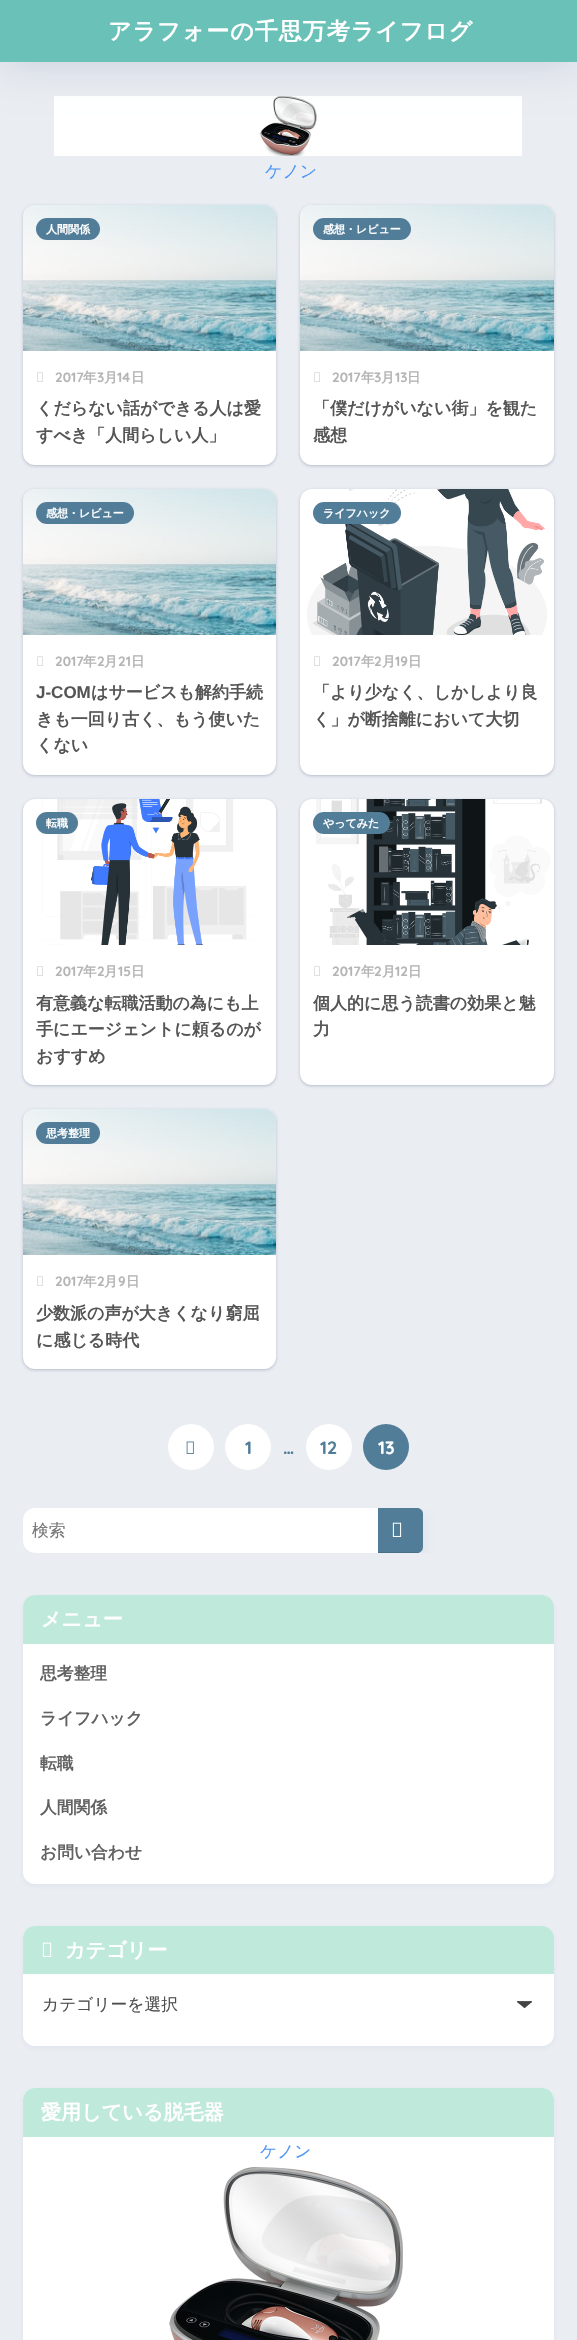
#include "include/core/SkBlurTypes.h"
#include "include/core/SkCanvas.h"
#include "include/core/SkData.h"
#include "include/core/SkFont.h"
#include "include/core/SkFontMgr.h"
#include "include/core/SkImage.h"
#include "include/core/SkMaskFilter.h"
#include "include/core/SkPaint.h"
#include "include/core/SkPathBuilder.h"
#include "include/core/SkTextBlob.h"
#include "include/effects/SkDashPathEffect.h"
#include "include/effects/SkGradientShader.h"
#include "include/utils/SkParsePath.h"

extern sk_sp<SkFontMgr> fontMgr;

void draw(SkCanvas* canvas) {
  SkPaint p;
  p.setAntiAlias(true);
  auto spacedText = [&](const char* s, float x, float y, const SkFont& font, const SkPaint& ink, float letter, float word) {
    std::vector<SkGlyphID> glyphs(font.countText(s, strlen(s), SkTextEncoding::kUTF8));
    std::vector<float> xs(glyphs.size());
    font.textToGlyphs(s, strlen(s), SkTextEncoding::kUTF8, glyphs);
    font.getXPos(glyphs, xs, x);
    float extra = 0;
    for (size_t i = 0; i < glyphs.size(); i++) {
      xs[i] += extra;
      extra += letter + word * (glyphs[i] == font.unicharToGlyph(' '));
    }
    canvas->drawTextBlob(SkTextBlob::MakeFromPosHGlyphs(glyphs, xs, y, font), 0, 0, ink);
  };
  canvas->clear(SkColorSetRGB(234, 237, 242));
  canvas->drawImageRect(SkImages::DeferredFromEncodedData(SkData::MakeFromFileName("images/1.png")), SkRect::MakeLTRB(54, 96, 522, 156), SkSamplingOptions());
  p.setColor(SkColorSetARGB(38, 0, 12, 66));
  p.setMaskFilter(SkMaskFilter::MakeBlur(kNormal_SkBlurStyle, 22.5f));
  canvas->drawRect(SkRect::MakeLTRB(0, 0, 577, 62), p);
  p.setMaskFilter(nullptr);
  p.setColor(SkColorSetRGB(106, 193, 183));
  canvas->drawRect(SkRect::MakeLTRB(0, 0, 577, 62), p);
  p.setColor(SkColorSetARGB(26, 24, 44, 84));
  p.setMaskFilter(SkMaskFilter::MakeBlur(kNormal_SkBlurStyle, 1.5f));
  canvas->drawRoundRect(SkRect::MakeLTRB(22, 205, 277, 467), 13, 13, p);
  p.setMaskFilter(nullptr);
  p.setMaskFilter(SkMaskFilter::MakeBlur(kNormal_SkBlurStyle, 1));
  canvas->drawRoundRect(SkRect::MakeLTRB(23, 206, 276, 466), 12, 12, p);
  p.setMaskFilter(nullptr);
  p.setColor(SK_ColorWHITE);
  canvas->drawRoundRect(SkRect::MakeLTRB(23, 205, 276, 465), 12, 12, p);
  canvas->drawImageRect(SkImages::DeferredFromEncodedData(SkData::MakeFromFileName("images/2.png")), SkRect::MakeLTRB(23, 205, 276, 351), SkSamplingOptions());
  p.setColor(SkColorSetRGB(81, 125, 153));
  canvas->drawRoundRect(SkRect::MakeLTRB(36, 218, 100, 240), 11, 11, p);
  canvas->drawImageRect(SkImages::DeferredFromEncodedData(SkData::MakeFromFileName("images/3.png")), SkRect::MakeLTRB(37, 372, 43, 382), SkSamplingOptions());
  p.setColor(SkColorSetARGB(26, 24, 44, 84));
  p.setMaskFilter(SkMaskFilter::MakeBlur(kNormal_SkBlurStyle, 1.5f));
  canvas->drawRoundRect(SkRect::MakeLTRB(299, 205, 555, 467), 13, 13, p);
  p.setMaskFilter(nullptr);
  p.setMaskFilter(SkMaskFilter::MakeBlur(kNormal_SkBlurStyle, 1));
  canvas->drawRoundRect(SkRect::MakeLTRB(300, 206, 554, 466), 12, 12, p);
  p.setMaskFilter(nullptr);
  p.setColor(SK_ColorWHITE);
  canvas->drawRoundRect(SkRect::MakeLTRB(300, 205, 554, 465), 12, 12, p);
  canvas->drawImageRect(SkImages::DeferredFromEncodedData(SkData::MakeFromFileName("images/4.png")), SkRect::MakeLTRB(300, 205, 554, 351), SkSamplingOptions());
  p.setColor(SkColorSetRGB(81, 125, 153));
  canvas->drawRoundRect(SkRect::MakeLTRB(313, 218, 411, 240), 11, 11, p);
  canvas->drawImageRect(SkImages::DeferredFromEncodedData(SkData::MakeFromFileName("images/3.png")), SkRect::MakeLTRB(314, 372, 320, 382), SkSamplingOptions());
  p.setColor(SkColorSetARGB(26, 24, 44, 84));
  p.setMaskFilter(SkMaskFilter::MakeBlur(kNormal_SkBlurStyle, 1.5f));
  canvas->drawRoundRect(SkRect::MakeLTRB(22, 489, 277, 777), 13, 13, p);
  p.setMaskFilter(nullptr);
  p.setMaskFilter(SkMaskFilter::MakeBlur(kNormal_SkBlurStyle, 1));
  canvas->drawRoundRect(SkRect::MakeLTRB(23, 490, 276, 776), 12, 12, p);
  p.setMaskFilter(nullptr);
  p.setColor(SK_ColorWHITE);
  canvas->drawRoundRect(SkRect::MakeLTRB(23, 489, 276, 775), 12, 12, p);
  canvas->drawImageRect(SkImages::DeferredFromEncodedData(SkData::MakeFromFileName("images/2.png")), SkRect::MakeLTRB(23, 489, 276, 635), SkSamplingOptions());
  p.setColor(SkColorSetRGB(81, 125, 153));
  canvas->drawRoundRect(SkRect::MakeLTRB(36, 502, 134, 524), 11, 11, p);
  canvas->drawImageRect(SkImages::DeferredFromEncodedData(SkData::MakeFromFileName("images/3.png")), SkRect::MakeLTRB(37, 656, 43, 666), SkSamplingOptions());
  p.setColor(SkColorSetARGB(26, 24, 44, 84));
  p.setMaskFilter(SkMaskFilter::MakeBlur(kNormal_SkBlurStyle, 1.5f));
  canvas->drawRoundRect(SkRect::MakeLTRB(299, 489, 555, 777), 13, 13, p);
  p.setMaskFilter(nullptr);
  p.setMaskFilter(SkMaskFilter::MakeBlur(kNormal_SkBlurStyle, 1));
  canvas->drawRoundRect(SkRect::MakeLTRB(300, 490, 554, 776), 12, 12, p);
  p.setMaskFilter(nullptr);
  p.setColor(SK_ColorWHITE);
  canvas->drawRoundRect(SkRect::MakeLTRB(300, 489, 554, 775), 12, 12, p);
  canvas->drawImageRect(SkImages::DeferredFromEncodedData(SkData::MakeFromFileName("images/5.png")), SkRect::MakeLTRB(307, 489, 547, 635), SkSamplingOptions());
  p.setColor(SkColorSetRGB(81, 125, 153));
  canvas->drawRoundRect(SkRect::MakeLTRB(313, 502, 401, 524), 11, 11, p);
  canvas->drawImageRect(SkImages::DeferredFromEncodedData(SkData::MakeFromFileName("images/3.png")), SkRect::MakeLTRB(314, 656, 320, 666), SkSamplingOptions());
  p.setColor(SkColorSetARGB(26, 24, 44, 84));
  p.setMaskFilter(SkMaskFilter::MakeBlur(kNormal_SkBlurStyle, 1.5f));
  canvas->drawRoundRect(SkRect::MakeLTRB(22, 799, 277, 1087), 13, 13, p);
  p.setMaskFilter(nullptr);
  p.setMaskFilter(SkMaskFilter::MakeBlur(kNormal_SkBlurStyle, 1));
  canvas->drawRoundRect(SkRect::MakeLTRB(23, 800, 276, 1086), 12, 12, p);
  p.setMaskFilter(nullptr);
  p.setColor(SK_ColorWHITE);
  canvas->drawRoundRect(SkRect::MakeLTRB(23, 799, 276, 1085), 12, 12, p);
  canvas->drawImageRect(SkImages::DeferredFromEncodedData(SkData::MakeFromFileName("images/6.png")), SkRect::MakeLTRB(42, 799, 253, 945), SkSamplingOptions());
  p.setColor(SkColorSetRGB(81, 125, 153));
  canvas->drawRoundRect(SkRect::MakeLTRB(36, 812, 78, 834), 11, 11, p);
  canvas->drawImageRect(SkImages::DeferredFromEncodedData(SkData::MakeFromFileName("images/3.png")), SkRect::MakeLTRB(37, 966, 43, 976), SkSamplingOptions());
  p.setColor(SkColorSetARGB(26, 24, 44, 84));
  p.setMaskFilter(SkMaskFilter::MakeBlur(kNormal_SkBlurStyle, 1.5f));
  canvas->drawRoundRect(SkRect::MakeLTRB(299, 799, 555, 1087), 13, 13, p);
  p.setMaskFilter(nullptr);
  p.setMaskFilter(SkMaskFilter::MakeBlur(kNormal_SkBlurStyle, 1));
  canvas->drawRoundRect(SkRect::MakeLTRB(300, 800, 554, 1086), 12, 12, p);
  p.setMaskFilter(nullptr);
  p.setColor(SK_ColorWHITE);
  canvas->drawRoundRect(SkRect::MakeLTRB(300, 799, 554, 1085), 12, 12, p);
  canvas->drawImageRect(SkImages::DeferredFromEncodedData(SkData::MakeFromFileName("images/7.png")), SkRect::MakeLTRB(316, 799, 551, 945), SkSamplingOptions());
  p.setColor(SkColorSetRGB(81, 125, 153));
  canvas->drawRoundRect(SkRect::MakeLTRB(313, 812, 390, 834), 11, 11, p);
  canvas->drawImageRect(SkImages::DeferredFromEncodedData(SkData::MakeFromFileName("images/3.png")), SkRect::MakeLTRB(314, 966, 320, 976), SkSamplingOptions());
  p.setColor(SkColorSetARGB(26, 24, 44, 84));
  p.setMaskFilter(SkMaskFilter::MakeBlur(kNormal_SkBlurStyle, 1.5f));
  canvas->drawRoundRect(SkRect::MakeLTRB(22, 1109, 277, 1371), 13, 13, p);
  p.setMaskFilter(nullptr);
  p.setMaskFilter(SkMaskFilter::MakeBlur(kNormal_SkBlurStyle, 1));
  canvas->drawRoundRect(SkRect::MakeLTRB(23, 1110, 276, 1370), 12, 12, p);
  p.setMaskFilter(nullptr);
  p.setColor(SK_ColorWHITE);
  canvas->drawRoundRect(SkRect::MakeLTRB(23, 1109, 276, 1369), 12, 12, p);
  canvas->drawImageRect(SkImages::DeferredFromEncodedData(SkData::MakeFromFileName("images/2.png")), SkRect::MakeLTRB(23, 1109, 276, 1255), SkSamplingOptions());
  p.setColor(SkColorSetRGB(81, 125, 153));
  canvas->drawRoundRect(SkRect::MakeLTRB(36, 1122, 100, 1144), 11, 11, p);
  canvas->drawImageRect(SkImages::DeferredFromEncodedData(SkData::MakeFromFileName("images/3.png")), SkRect::MakeLTRB(37, 1276, 43, 1286), SkSamplingOptions());
  p.setColor(SK_ColorWHITE);
  canvas->drawCircle(191, 1447, 23, p);
  canvas->drawImageRect(SkImages::DeferredFromEncodedData(SkData::MakeFromFileName("images/8.png")), SkRect::MakeLTRB(186, 1441, 194, 1454), SkSamplingOptions());
  canvas->drawCircle(248, 1447, 23, p);
  canvas->drawCircle(329, 1447, 23, p);
  p.setColor(SkColorSetRGB(81, 125, 153));
  canvas->drawCircle(386, 1447, 23, p);
  canvas->save();
  canvas->clipPath(SkPathBuilder().moveTo(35, 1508).lineTo(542, 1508).cubicTo(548.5f, 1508, 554, 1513.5f, 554, 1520).lineTo(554, 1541).cubicTo(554, 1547.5f, 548.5f, 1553, 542, 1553).lineTo(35, 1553).cubicTo(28.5f, 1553, 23, 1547.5f, 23, 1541).lineTo(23, 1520).cubicTo(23, 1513.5f, 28.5f, 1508, 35, 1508).close().detach(), true);
  p.setColor(SkColorSetARGB(26, 0, 12, 66));
  p.setMaskFilter(SkMaskFilter::MakeBlur(kNormal_SkBlurStyle, 6.5f));
  canvas->drawRoundRect(SkRect::MakeLTRB(26, 1517, 420, 1556), 3, 3, p);
  p.setMaskFilter(nullptr);
  canvas->restore();
  p.setColor(SK_ColorWHITE);
  canvas->drawPath(SkPathBuilder().moveTo(35, 1508).lineTo(417, 1508).cubicTo(420.5f, 1508, 423, 1510.5f, 423, 1514).lineTo(423, 1547).cubicTo(423, 1550.5f, 420.5f, 1553, 417, 1553).lineTo(35, 1553).cubicTo(28.5f, 1553, 23, 1547.5f, 23, 1541).lineTo(23, 1520).cubicTo(23, 1513.5f, 28.5f, 1508, 35, 1508).close().detach(), p);
  p.setColor(SkColorSetRGB(81, 125, 153));
  canvas->drawPath(SkPathBuilder().moveTo(378, 1508).lineTo(417, 1508).cubicTo(420.5f, 1508, 423, 1510.5f, 423, 1514).lineTo(423, 1547).cubicTo(423, 1550.5f, 420.5f, 1553, 417, 1553).lineTo(378, 1553).close().detach(), p);
  p.setColor(SkColorSetARGB(26, 0, 0, 0));
  canvas->drawRect(SkRect::MakeLTRB(378, 1552, 420, 1553), p);
  canvas->drawImageRect(SkImages::DeferredFromEncodedData(SkData::MakeFromFileName("images/9.png")), SkRect::MakeLTRB(392, 1522, 402, 1537), SkSamplingOptions());
  p.setColor(SkColorSetARGB(18, 67, 133, 187));
  p.setMaskFilter(SkMaskFilter::MakeBlur(kNormal_SkBlurStyle, 2));
  canvas->drawRoundRect(SkRect::MakeLTRB(23, 1597, 554, 1886), 12, 12, p);
  p.setMaskFilter(nullptr);
  p.setColor(SK_ColorWHITE);
  canvas->drawRoundRect(SkRect::MakeLTRB(23, 1595, 554, 1884), 12, 12, p);
  p.setColor(SkColorSetRGB(191, 233, 219));
  canvas->drawPath(SkPathBuilder().moveTo(35, 1595).lineTo(542, 1595).cubicTo(548.5f, 1595, 554, 1600.5f, 554, 1607).lineTo(554, 1644).lineTo(23, 1644).lineTo(23, 1607).cubicTo(23, 1600.5f, 28.5f, 1595, 35, 1595).close().detach(), p);
  p.setColor(SkColorSetARGB(18, 67, 133, 187));
  p.setMaskFilter(SkMaskFilter::MakeBlur(kNormal_SkBlurStyle, 2));
  canvas->drawRoundRect(SkRect::MakeLTRB(23, 1928, 554, 2048), 12, 12, p);
  p.setMaskFilter(nullptr);
  p.setColor(SK_ColorWHITE);
  canvas->drawRoundRect(SkRect::MakeLTRB(23, 1926, 554, 2046), 12, 12, p);
  p.setColor(SkColorSetRGB(191, 233, 219));
  canvas->drawPath(SkPathBuilder().moveTo(35, 1926).lineTo(542, 1926).cubicTo(548.5f, 1926, 554, 1931.5f, 554, 1938).lineTo(554, 1974).lineTo(23, 1974).lineTo(23, 1938).cubicTo(23, 1931.5f, 28.5f, 1926, 35, 1926).close().detach(), p);
  canvas->drawImageRect(SkImages::DeferredFromEncodedData(SkData::MakeFromFileName("images/10.png")), SkRect::MakeLTRB(42, 1942, 52, 1957), SkSamplingOptions());
  canvas->drawImageRect(SkImages::DeferredFromEncodedData(SkData::MakeFromFileName("images/11.png")), SkRect::MakeLTRB(517, 2001, 532, 2008), SkSamplingOptions());
  p.setColor(SkColorSetARGB(18, 67, 133, 187));
  p.setMaskFilter(SkMaskFilter::MakeBlur(kNormal_SkBlurStyle, 2));
  canvas->drawRoundRect(SkRect::MakeLTRB(23, 2090, 554, 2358), 12, 12, p);
  p.setMaskFilter(nullptr);
  p.setColor(SK_ColorWHITE);
  canvas->drawRoundRect(SkRect::MakeLTRB(23, 2088, 554, 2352), 12, 12, p);
  p.setColor(SkColorSetRGB(191, 233, 219));
  canvas->drawPath(SkPathBuilder().moveTo(35, 2088).lineTo(542, 2088).cubicTo(548.5f, 2088, 554, 2093.5f, 554, 2100).lineTo(554, 2137).lineTo(23, 2137).lineTo(23, 2100).cubicTo(23, 2093.5f, 28.5f, 2088, 35, 2088).close().detach(), p);
  canvas->drawImageRect(SkImages::DeferredFromEncodedData(SkData::MakeFromFileName("images/12.png")), SkRect::MakeLTRB(169, 2167, 403, 2340), SkSamplingOptions());
  SkFont font1(fontMgr->matchFamilyStyle("WenQuanYi Zen Hei", SkFontStyle::Bold()), 23);
  font1.setSubpixel(true);
  p.setColor(SK_ColorWHITE);
  spacedText("アラフォーの千思万考ライフログ", 108, 39, font1, p, 1, 0);
  SkFont font2(fontMgr->matchFamilyStyle("WenQuanYi Zen Hei", SkFontStyle(500, SkFontStyle::kNormal_Width, SkFontStyle::kUpright_Slant)), 17);
  font2.setSubpixel(true);
  p.setColor(SkColorSetRGB(79, 150, 246));
  canvas->drawString("ケノン", 265, 177, font2, p);
  SkFont font3(fontMgr->matchFamilyStyle("WenQuanYi Zen Hei", SkFontStyle::Bold()), 11);
  font3.setSubpixel(true);
  p.setColor(SK_ColorWHITE);
  canvas->drawString("人間関係", 46, 233, font3, p);
  SkFont font4(fontMgr->matchFamilyStyle("Quicksand", SkFontStyle::Bold()), 13.5f);
  font4.setSubpixel(true);
  p.setColor(SkColorSetRGB(181, 181, 181));
  canvas->drawString("2017", 55, 382, font4, p);
  SkFont font5(fontMgr->matchFamilyStyle("WenQuanYi Zen Hei", SkFontStyle::Bold()), 13.5f);
  font5.setSubpixel(true);
  canvas->drawString("年", 83, 382, font5, p);
  canvas->drawString("3", 97, 382, font4, p);
  canvas->drawString("月", 104, 382, font5, p);
  canvas->drawString("14", 117, 382, font4, p);
  canvas->drawString("日", 131, 382, font5, p);
  SkFont font6(fontMgr->matchFamilyStyle("WenQuanYi Zen Hei", SkFontStyle::Bold()), 17);
  font6.setSubpixel(true);
  p.setColor(SkColorSetRGB(85, 85, 85));
  canvas->drawString("くだらない話ができる人は愛", 36, 414, font6, p);
  canvas->drawString("すべき「人間らしい人」", 36, 441, font6, p);
  p.setColor(SK_ColorWHITE);
  canvas->drawString("感想・レビュー", 323, 233, font3, p);
  p.setColor(SkColorSetRGB(181, 181, 181));
  canvas->drawString("2017", 332, 382, font4, p);
  canvas->drawString("年", 361, 382, font5, p);
  canvas->drawString("3", 374, 382, font4, p);
  canvas->drawString("月", 381, 382, font5, p);
  canvas->drawString("13", 395, 382, font4, p);
  canvas->drawString("日", 407, 382, font5, p);
  p.setColor(SkColorSetRGB(85, 85, 85));
  canvas->drawString("「僕だけがいない街」を観た", 313, 414, font6, p);
  canvas->drawString("感想", 313, 441, font6, p);
  p.setColor(SK_ColorWHITE);
  canvas->drawString("感想・レビュー", 46, 517, font3, p);
  p.setColor(SkColorSetRGB(181, 181, 181));
  canvas->drawString("2017", 55, 666, font4, p);
  canvas->drawString("年", 83, 666, font5, p);
  canvas->drawString("2", 97, 666, font4, p);
  canvas->drawString("月", 104, 666, font5, p);
  canvas->drawString("21", 118, 666, font4, p);
  canvas->drawString("日", 131, 666, font5, p);
  SkFont font7(fontMgr->matchFamilyStyle("Liberation Sans", SkFontStyle::Bold()), 17);
  font7.setSubpixel(true);
  p.setColor(SkColorSetRGB(85, 85, 85));
  canvas->drawString("J-COM", 36, 698, font7, p);
  canvas->drawString("はサービスも解約手続", 91, 698, font6, p);
  canvas->drawString("きも一回り古く、もう使いた", 36, 725, font6, p);
  canvas->drawString("くない", 36, 751, font6, p);
  p.setColor(SK_ColorWHITE);
  canvas->drawString("ライフハック", 323, 517, font3, p);
  p.setColor(SkColorSetRGB(181, 181, 181));
  canvas->drawString("2017", 332, 666, font4, p);
  canvas->drawString("年", 361, 666, font5, p);
  canvas->drawString("2", 374, 666, font4, p);
  canvas->drawString("月", 382, 666, font5, p);
  canvas->drawString("19", 395, 666, font4, p);
  canvas->drawString("日", 408, 666, font5, p);
  p.setColor(SkColorSetRGB(85, 85, 85));
  canvas->drawString("「より少なく、しかしより良", 313, 698, font6, p);
  canvas->drawString("く」が断捨離において大切", 313, 725, font6, p);
  p.setColor(SK_ColorWHITE);
  canvas->drawString("転職", 46, 827, font3, p);
  p.setColor(SkColorSetRGB(181, 181, 181));
  canvas->drawString("2017", 55, 976, font4, p);
  canvas->drawString("年", 83, 976, font5, p);
  canvas->drawString("2", 97, 976, font4, p);
  canvas->drawString("月", 104, 976, font5, p);
  canvas->drawString("15", 118, 976, font4, p);
  canvas->drawString("日", 131, 976, font5, p);
  p.setColor(SkColorSetRGB(85, 85, 85));
  canvas->drawString("有意義な転職活動の為にも上", 36, 1009, font6, p);
  canvas->drawString("手にエージェントに頼るのが", 36, 1035, font6, p);
  canvas->drawString("おすすめ", 36, 1062, font6, p);
  p.setColor(SK_ColorWHITE);
  canvas->drawString("やってみた", 323, 827, font3, p);
  p.setColor(SkColorSetRGB(181, 181, 181));
  canvas->drawString("2017", 332, 976, font4, p);
  canvas->drawString("年", 361, 976, font5, p);
  canvas->drawString("2", 374, 976, font4, p);
  canvas->drawString("月", 382, 976, font5, p);
  canvas->drawString("12", 395, 976, font4, p);
  canvas->drawString("日", 408, 976, font5, p);
  p.setColor(SkColorSetRGB(85, 85, 85));
  canvas->drawString("個人的に思う読書の効果と魅", 313, 1009, font6, p);
  canvas->drawString("力", 313, 1035, font6, p);
  p.setColor(SK_ColorWHITE);
  canvas->drawString("思考整理", 46, 1137, font3, p);
  p.setColor(SkColorSetRGB(181, 181, 181));
  canvas->drawString("2017", 55, 1286, font4, p);
  canvas->drawString("年", 83, 1286, font5, p);
  canvas->drawString("2", 97, 1286, font4, p);
  canvas->drawString("月", 104, 1286, font5, p);
  canvas->drawString("9", 118, 1286, font4, p);
  canvas->drawString("日", 126, 1286, font5, p);
  p.setColor(SkColorSetRGB(85, 85, 85));
  canvas->drawString("少数派の声が大きくなり窮屈", 36, 1319, font6, p);
  canvas->drawString("に感じる時代", 36, 1346, font6, p);
  SkFont font8(fontMgr->matchFamilyStyle("Quicksand", SkFontStyle::Bold()), 18);
  font8.setSubpixel(true);
  p.setColor(SkColorSetRGB(81, 125, 153));
  canvas->drawString("1", 245, 1454, font8, p);
  canvas->drawString("…", 283, 1454, font8, p);
  canvas->drawString("12", 320, 1454, font8, p);
  p.setColor(SK_ColorWHITE);
  canvas->drawString("13", 378, 1454, font8, p);
  SkFont font9(fontMgr->matchFamilyStyle("WenQuanYi Zen Hei", SkFontStyle(500, SkFontStyle::kNormal_Width, SkFontStyle::kUpright_Slant)), 16.75f);
  font9.setSubpixel(true);
  p.setColor(SkColorSetRGB(117, 117, 117));
  canvas->drawString("検索", 32, 1536, font9, p);
  SkFont font10(fontMgr->matchFamilyStyle("WenQuanYi Zen Hei", SkFontStyle::Bold()), 20.1f);
  font10.setSubpixel(true);
  p.setColor(SK_ColorWHITE);
  canvas->drawString("メニュー", 41, 1626, font10, p);
  SkFont font11(fontMgr->matchFamilyStyle("WenQuanYi Zen Hei", SkFontStyle::Bold()), 16.75f);
  font11.setSubpixel(true);
  p.setColor(SkColorSetRGB(98, 98, 98));
  canvas->drawString("思考整理", 40, 1679, font11, p);
  canvas->drawString("ライフハック", 40, 1724, font11, p);
  canvas->drawString("転職", 40, 1769, font11, p);
  canvas->drawString("人間関係", 40, 1813, font11, p);
  canvas->drawString("お問い合わせ", 40, 1858, font11, p);
  p.setColor(SK_ColorWHITE);
  canvas->drawString("カテゴリー", 65, 1957, font10, p);
  p.setColor(SkColorSetRGB(77, 77, 77));
  canvas->drawString("カテゴリーを選択", 42, 2010, font9, p);
  p.setColor(SK_ColorWHITE);
  canvas->drawString("愛用している脱毛器", 41, 2119, font10, p);
  p.setColor(SkColorSetRGB(79, 150, 246));
  canvas->drawString("ケノン", 260, 2157, font9, p);
}
